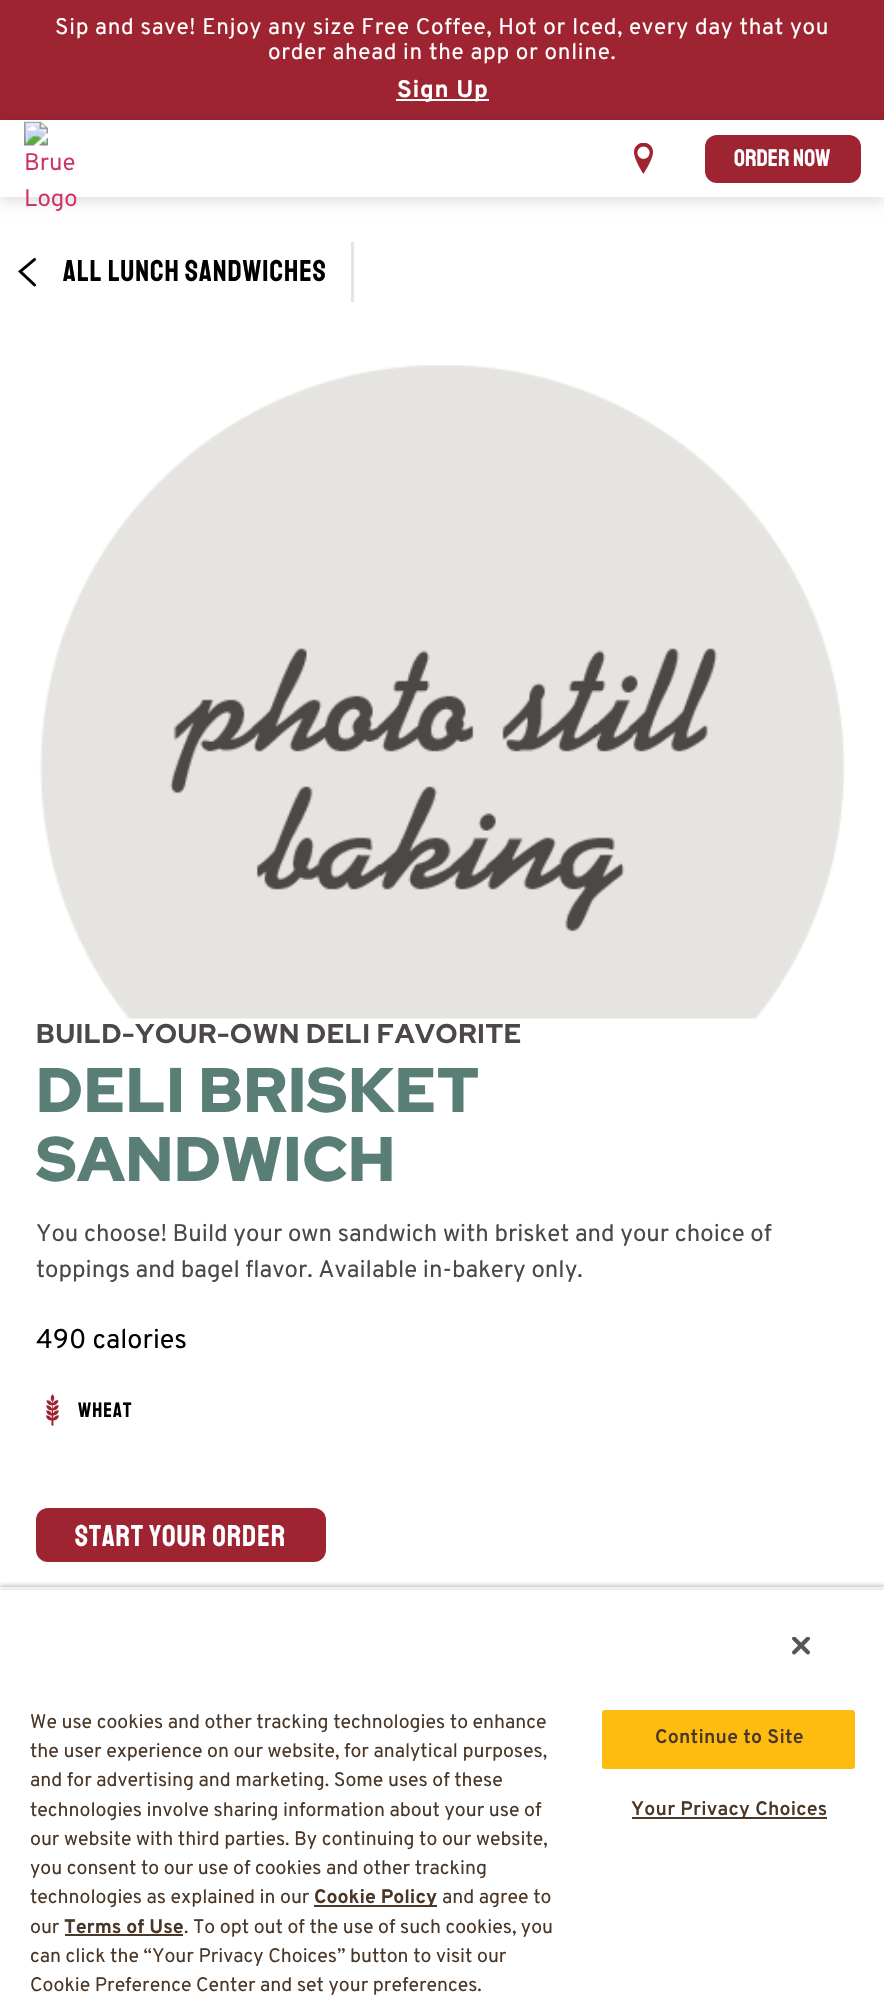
#include "include/core/SkBlurTypes.h"
#include "include/core/SkCanvas.h"
#include "include/core/SkData.h"
#include "include/core/SkFont.h"
#include "include/core/SkFontMgr.h"
#include "include/core/SkImage.h"
#include "include/core/SkMaskFilter.h"
#include "include/core/SkPaint.h"
#include "include/core/SkPathBuilder.h"
#include "include/core/SkTextBlob.h"
#include "include/effects/SkDashPathEffect.h"
#include "include/effects/SkGradientShader.h"
#include "include/utils/SkParsePath.h"

extern sk_sp<SkFontMgr> fontMgr;

void draw(SkCanvas* canvas) {
  SkPaint p;
  p.setAntiAlias(true);
  auto spacedText = [&](const char* s, float x, float y, const SkFont& font, const SkPaint& ink, float letter, float word) {
    std::vector<SkGlyphID> glyphs(font.countText(s, strlen(s), SkTextEncoding::kUTF8));
    std::vector<float> xs(glyphs.size());
    font.textToGlyphs(s, strlen(s), SkTextEncoding::kUTF8, glyphs);
    font.getXPos(glyphs, xs, x);
    float extra = 0;
    for (size_t i = 0; i < glyphs.size(); i++) {
      xs[i] += extra;
      extra += letter + word * (glyphs[i] == font.unicharToGlyph(' '));
    }
    canvas->drawTextBlob(SkTextBlob::MakeFromPosHGlyphs(glyphs, xs, y, font), 0, 0, ink);
  };
  canvas->clear(SK_ColorWHITE);
  p.setColor(SkColorSetRGB(158, 36, 50));
  canvas->drawRect(SkRect::MakeLTRB(0, 0, 884, 120), p);
  p.setColor(SK_ColorWHITE);
  canvas->drawRect(SkRect::MakeLTRB(396, 99, 489, 101), p);
  p.setColor(SkColorSetARGB(38, 0, 0, 0));
  p.setMaskFilter(SkMaskFilter::MakeBlur(kNormal_SkBlurStyle, 7.5f));
  canvas->drawRect(SkRect::MakeLTRB(0, 123, 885, 200), p);
  p.setMaskFilter(nullptr);
  p.setColor(SK_ColorWHITE);
  canvas->drawRect(SkRect::MakeLTRB(0, 120, 884, 197), p);
  canvas->drawImageRect(SkImages::DeferredFromEncodedData(SkData::MakeFromFileName("images/1.png")), SkRect::MakeLTRB(24, 121, 77, 211), SkSamplingOptions());
  canvas->drawImageRect(SkImages::DeferredFromEncodedData(SkData::MakeFromFileName("images/2.png")), SkRect::MakeLTRB(634, 143, 653, 174), SkSamplingOptions());
  p.setColor(SkColorSetRGB(158, 36, 50));
  canvas->drawRoundRect(SkRect::MakeLTRB(705, 135, 861, 183), 12, 12, p);
  p.setColor(SkColorSetRGB(229, 228, 224));
  canvas->drawRect(SkRect::MakeLTRB(351, 242, 354, 302), p);
  canvas->drawImageRect(SkImages::DeferredFromEncodedData(SkData::MakeFromFileName("images/3.png")), SkRect::MakeLTRB(18, 258, 36, 287), SkSamplingOptions());
  canvas->drawImageRect(SkImages::DeferredFromEncodedData(SkData::MakeFromFileName("images/4.png")), SkRect::MakeLTRB(39, 365, 845, 1019), SkSamplingOptions());
  canvas->drawImageRect(SkImages::DeferredFromEncodedData(SkData::MakeFromFileName("images/5.png")), SkRect::MakeLTRB(46, 1394, 59, 1426), SkSamplingOptions());
  p.setColor(SkColorSetRGB(158, 36, 50));
  canvas->drawRoundRect(SkRect::MakeLTRB(36, 1508, 326, 1562), 12, 12, p);
  canvas->save();
  canvas->clipRect(SkRect::MakeLTRB(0, 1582, 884, 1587));
  p.setColor(SkColorSetARGB(89, 0, 0, 0));
  p.setMaskFilter(SkMaskFilter::MakeBlur(kNormal_SkBlurStyle, 3));
  canvas->drawRect(SkRect::MakeLTRB(0, 1587, 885, 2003), p);
  p.setMaskFilter(nullptr);
  canvas->restore();
  p.setColor(SkColorSetARGB(51, 0, 0, 0));
  p.setMaskFilter(SkMaskFilter::MakeBlur(kNormal_SkBlurStyle, 3));
  canvas->drawRect(SkRect::MakeLTRB(0, 1590, 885, 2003), p);
  p.setMaskFilter(nullptr);
  p.setColor(SK_ColorWHITE);
  canvas->drawRect(SkRect::MakeLTRB(0, 1590, 884, 2002), p);
  canvas->drawImageRect(SkImages::DeferredFromEncodedData(SkData::MakeFromFileName("images/6.png")), SkRect::MakeLTRB(792, 1637, 810, 1655), SkSamplingOptions());
  p.setColor(SkColorSetRGB(74, 55, 40));
  canvas->drawRect(SkRect::MakeLTRB(314, 1905, 437, 1907), p);
  canvas->drawRect(SkRect::MakeLTRB(65, 1934, 183, 1936), p);
  p.setColor(SkColorSetRGB(254, 188, 17));
  canvas->drawRoundRect(SkRect::MakeLTRB(603, 1711, 854, 1768), 2, 2, p);
  p.setStyle(SkPaint::kStroke_Style);
  p.setStrokeWidth(2);
  canvas->drawRoundRect(SkRect::MakeLTRB(603, 1711, 854, 1768), 2, 2, p);
  p.setStyle(SkPaint::kFill_Style);
  p.setColor(SkColorSetRGB(74, 55, 40));
  canvas->drawRect(SkRect::MakeLTRB(632, 1817, 827, 1819), p);
  SkFont font1(fontMgr->matchFamilyStyle("Overpass", SkFontStyle::Normal()), 22.5f);
  font1.setSubpixel(true);
  p.setColor(SK_ColorWHITE);
  spacedText("Sip and save! Enjoy any size Free Coffee, Hot or Iced, every day that you", 55, 34, font1, p, 0.72f, 0);
  spacedText("order ahead in the app or online.", 268, 59, font1, p, 0.72f, 0);
  SkFont font2(fontMgr->matchFamilyStyle("Overpass", SkFontStyle::Bold()), 24);
  font2.setSubpixel(true);
  spacedText("Sign Up", 397, 97, font2, p, 0.72f, 0);
  SkFont font3(fontMgr->matchFamilyStyle("Staatliches", SkFontStyle::Normal()), 24);
  font3.setSubpixel(true);
  canvas->drawString("ORDER NOW", 734, 166, font3, p);
  SkFont font4(fontMgr->matchFamilyStyle("Staatliches", SkFontStyle::Normal()), 30);
  font4.setSubpixel(true);
  p.setColor(SK_ColorBLACK);
  spacedText("ALL LUNCH SANDWICHES", 63, 281, font4, p, 0.9f, 0);
  SkFont font5(fontMgr->matchFamilyStyle("Red Hat Display", SkFontStyle(800, SkFontStyle::kNormal_Width, SkFontStyle::kUpright_Slant)), 27);
  font5.setSubpixel(true);
  p.setColor(SkColorSetRGB(75, 72, 71));
  spacedText("BUILD-YOUR-OWN DELI FAVORITE", 36, 1043, font5, p, 0.72f, 0);
  SkFont font6(fontMgr->matchFamilyStyle("Red Hat Display", SkFontStyle(900, SkFontStyle::kNormal_Width, SkFontStyle::kUpright_Slant)), 63);
  font6.setSubpixel(true);
  p.setColor(SkColorSetRGB(89, 126, 118));
  spacedText("DELI BRISKET", 36, 1112, font6, p, 0.72f, 0);
  spacedText("SANDWICH", 36, 1181, font6, p, 0.72f, 0);
  SkFont font7(fontMgr->matchFamilyStyle("Overpass", SkFontStyle::Normal()), 24);
  font7.setSubpixel(true);
  p.setColor(SkColorSetRGB(75, 72, 71));
  canvas->drawString("You choose! Build your own sandwich with brisket and your choice of", 36, 1241, font7, p);
  canvas->drawString("toppings and bagel flavor. Available in-bakery only.", 36, 1277, font7, p);
  SkFont font8(fontMgr->matchFamilyStyle("Overpass", SkFontStyle::Normal()), 27);
  font8.setSubpixel(true);
  p.setColor(SK_ColorBLACK);
  canvas->drawString("490 calories", 36, 1348, font8, p);
  SkFont font9(fontMgr->matchFamilyStyle("Staatliches", SkFontStyle::Normal()), 21);
  font9.setSubpixel(true);
  spacedText("Wheat", 78, 1417, font9, p, 1, 0);
  p.setColor(SK_ColorWHITE);
  spacedText("Start Your Order", 75, 1546, font4, p, 0.9f, 0);
  SkFont font10(fontMgr->matchFamilyStyle("Overpass", SkFontStyle::Normal()), 19.5f);
  font10.setSubpixel(true);
  p.setColor(SkColorSetRGB(74, 55, 40));
  canvas->drawString("We use cookies and other tracking technologies to enhance", 30, 1728, font10, p);
  canvas->drawString("the user experience on our website, for analytical purposes,", 30, 1757, font10, p);
  canvas->drawString("and for advertising and marketing. Some uses of these", 30, 1786, font10, p);
  canvas->drawString("technologies involve sharing information about your use of", 30, 1816, font10, p);
  canvas->drawString("our website with third parties. By continuing to our website,", 30, 1845, font10, p);
  canvas->drawString("you consent to our use of cookies and other tracking", 30, 1874, font10, p);
  canvas->drawString("technologies as explained in our", 30, 1903, font10, p);
  SkFont font11(fontMgr->matchFamilyStyle("Overpass", SkFontStyle::Bold()), 19.5f);
  font11.setSubpixel(true);
  canvas->drawString("Cookie Policy", 314, 1903, font11, p);
  canvas->drawString("and agree to", 442, 1903, font10, p);
  canvas->drawString("our", 30, 1933, font10, p);
  canvas->drawString("Terms of Use", 64, 1933, font11, p);
  canvas->drawString(". To opt out of the use of such cookies, you", 184, 1933, font10, p);
  canvas->drawString("can click the “Your Privacy Choices” button to visit our", 30, 1962, font10, p);
  canvas->drawString("Cookie Preference Center and set your preferences.", 30, 1991, font10, p);
  SkFont font12(fontMgr->matchFamilyStyle("Overpass", SkFontStyle(600, SkFontStyle::kNormal_Width, SkFontStyle::kUpright_Slant)), 19.5f);
  font12.setSubpixel(true);
  spacedText("Continue to Site", 655, 1743, font12, p, 0.25f, 0);
  spacedText("Your Privacy Choices", 631, 1815, font12, p, 0.25f, 0);
}
